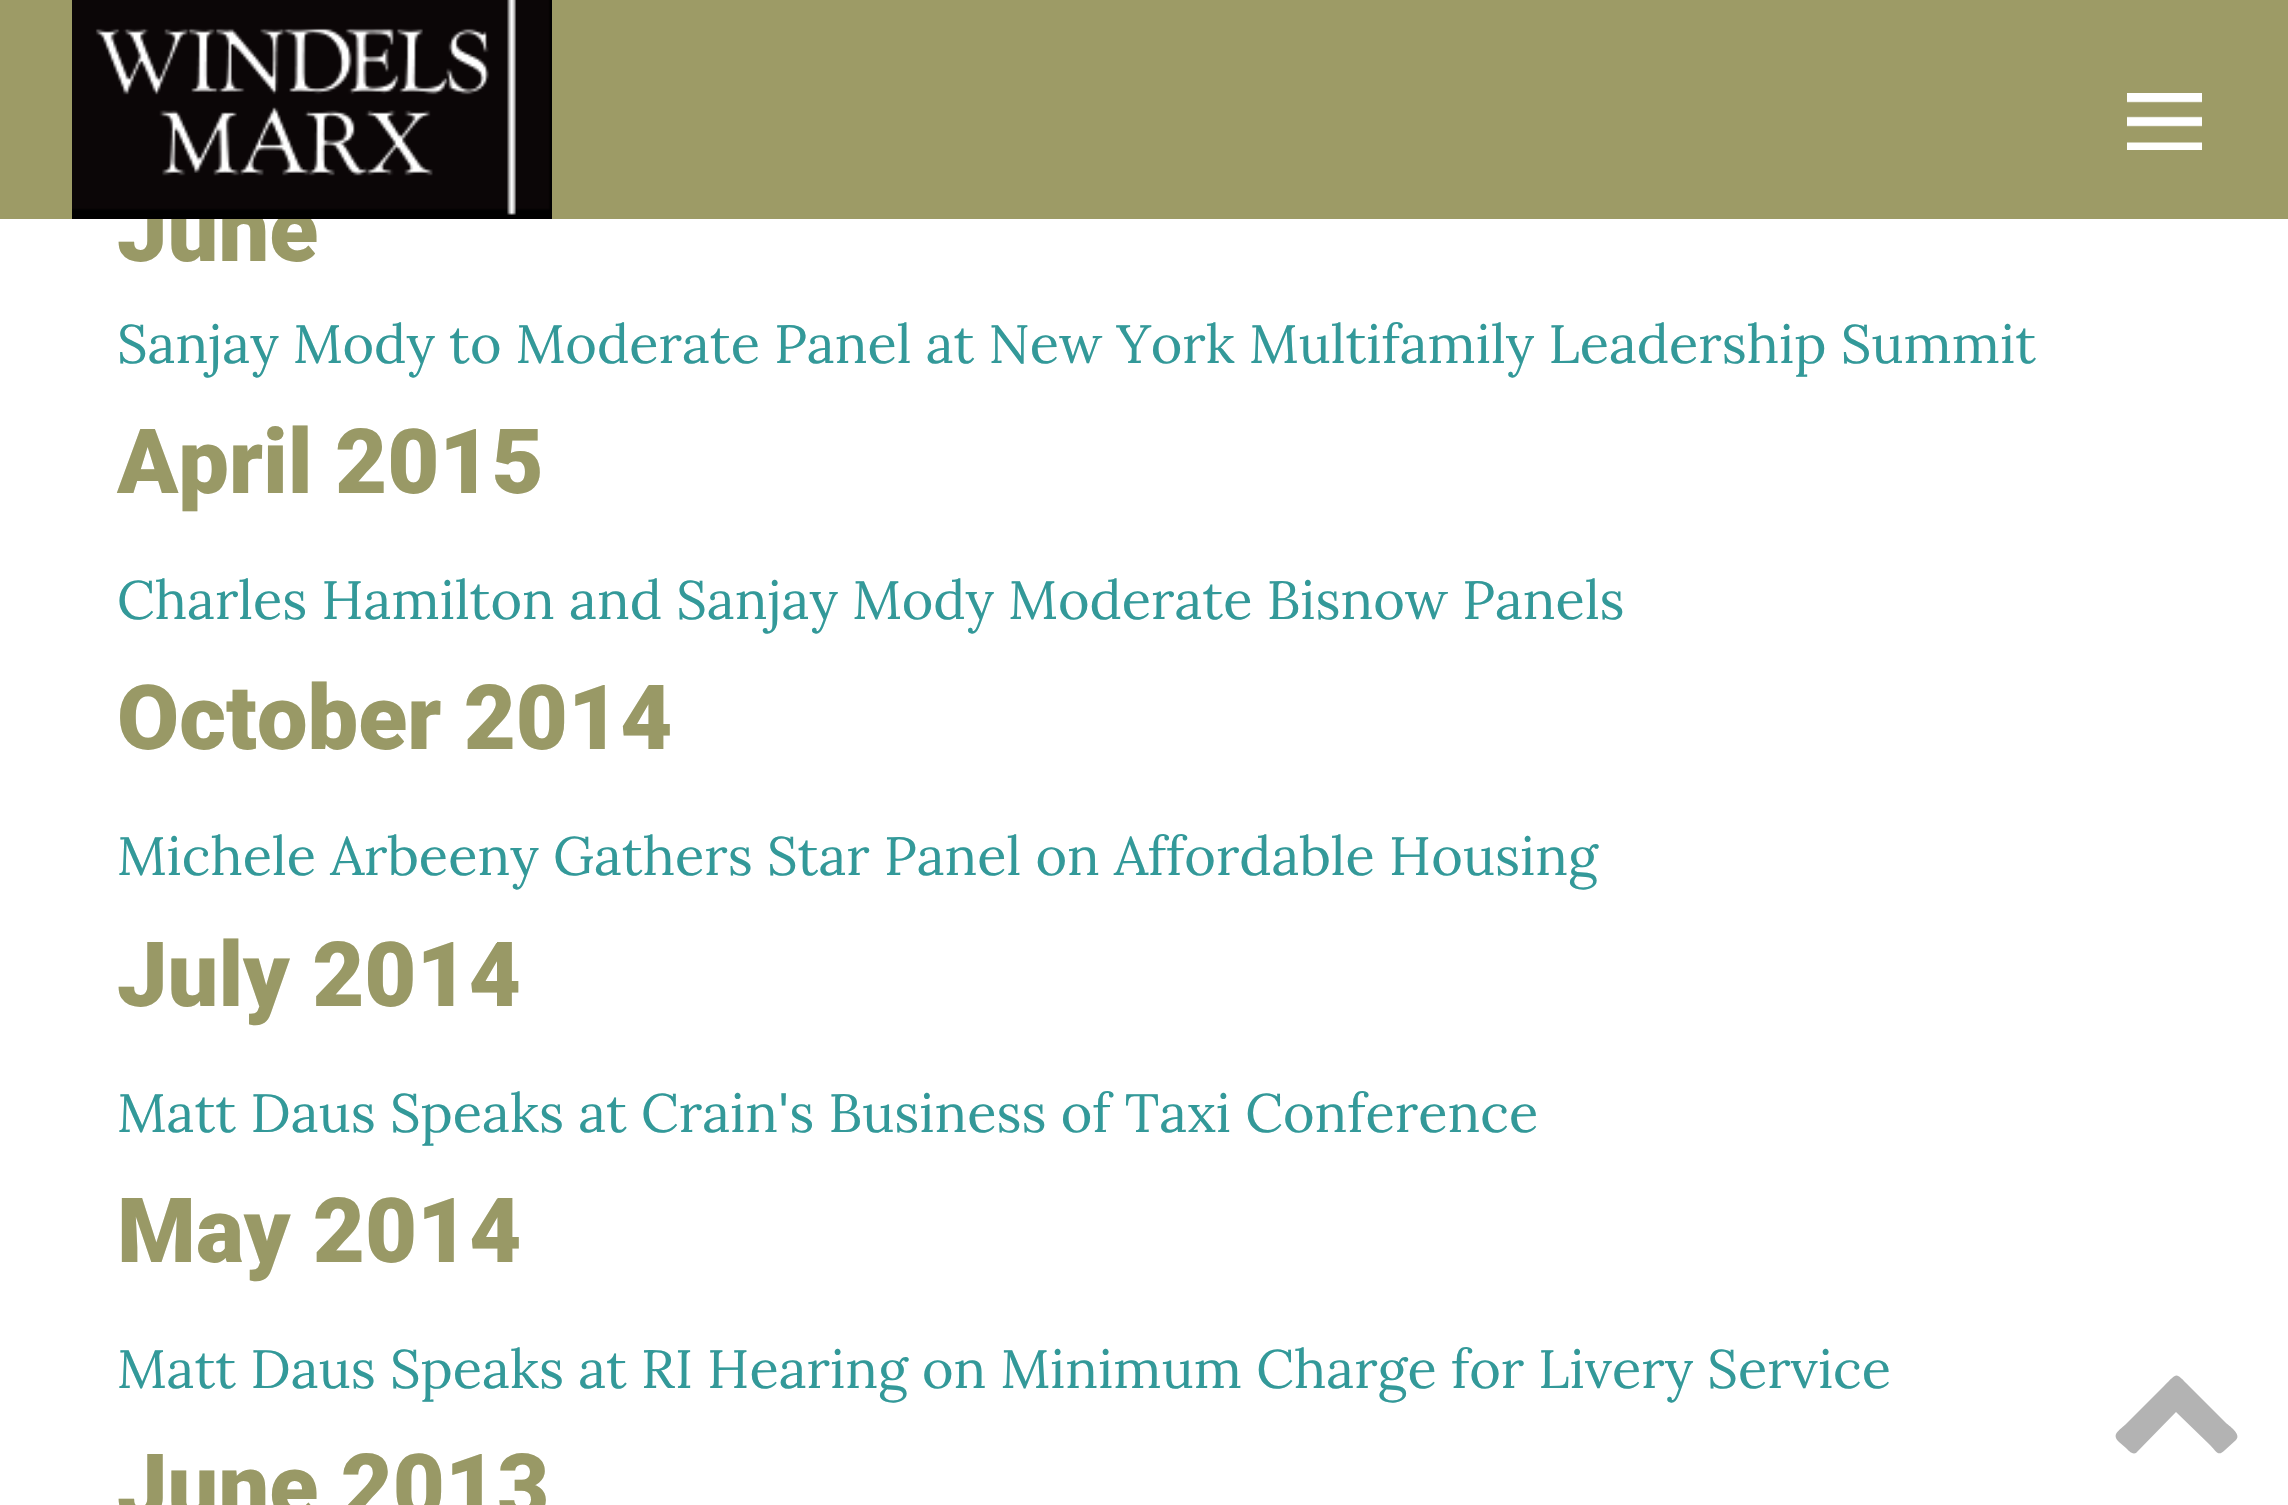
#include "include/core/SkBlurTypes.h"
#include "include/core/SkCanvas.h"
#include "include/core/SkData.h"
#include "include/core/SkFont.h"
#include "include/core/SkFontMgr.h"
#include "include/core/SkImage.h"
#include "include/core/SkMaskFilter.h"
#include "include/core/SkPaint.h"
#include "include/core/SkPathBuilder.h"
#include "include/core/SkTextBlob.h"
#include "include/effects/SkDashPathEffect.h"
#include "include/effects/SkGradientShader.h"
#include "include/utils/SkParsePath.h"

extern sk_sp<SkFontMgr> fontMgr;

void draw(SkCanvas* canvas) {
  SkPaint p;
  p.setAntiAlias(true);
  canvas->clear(SK_ColorWHITE);
  p.setColor(SkColorSetRGB(179, 179, 179));
  canvas->drawPath(SkPathBuilder().moveTo(2236, 1440).lineTo(2225, 1450).cubicTo(2218, 1457, 2217, 1452, 2210, 1445).lineTo(2176, 1412).lineTo(2136, 1453).cubicTo(2132, 1455, 2128, 1450, 2126, 1448).lineTo(2119, 1442).cubicTo(2111, 1434, 2119, 1431, 2127, 1423).lineTo(2164, 1386).cubicTo(2178, 1372, 2175, 1372, 2189, 1386).lineTo(2226, 1423).cubicTo(2228, 1425, 2242, 1434, 2236, 1440).close().detach(), p);
  SkFont font1(fontMgr->matchFamilyStyle("Roboto", SkFontStyle(900, SkFontStyle::kNormal_Width, SkFontStyle::kUpright_Slant)), 90);
  font1.setSubpixel(true);
  p.setColor(SkColorSetRGB(153, 153, 102));
  canvas->drawString("June", 117, 261, font1, p);
  p.setColor(SkColorSetRGB(157, 155, 102));
  canvas->drawRect(SkRect::MakeLTRB(0, 0, 2288, 219), p);
  canvas->drawImageRect(SkImages::DeferredFromEncodedData(SkData::MakeFromFileName("images/2.png")), SkRect::MakeLTRB(2127, 93, 2202, 150), SkSamplingOptions());
  canvas->drawImageRect(SkImages::DeferredFromEncodedData(SkData::MakeFromFileName("images/1.png")), SkRect::MakeLTRB(72, 0, 552, 219), SkSamplingOptions());
  SkFont font2(fontMgr->matchFamilyStyle("Lora", SkFontStyle::Normal()), 54);
  font2.setSubpixel(true);
  p.setColor(SkColorSetRGB(51, 153, 153));
  canvas->drawString("Sanjay Mody to Moderate Panel at New York Multifamily Leadership Summit", 117, 363, font2, p);
  p.setColor(SkColorSetRGB(153, 153, 102));
  canvas->drawString("April 2015", 117, 493, font1, p);
  p.setColor(SkColorSetRGB(51, 153, 153));
  canvas->drawString("Charles Hamilton and Sanjay Mody Moderate Bisnow Panels", 117, 619, font2, p);
  p.setColor(SkColorSetRGB(153, 153, 102));
  canvas->drawString("October 2014", 117, 749, font1, p);
  p.setColor(SkColorSetRGB(51, 153, 153));
  canvas->drawString("Michele Arbeeny Gathers Star Panel on Affordable Housing", 117, 875, font2, p);
  p.setColor(SkColorSetRGB(153, 153, 102));
  canvas->drawString("July 2014", 117, 1006, font1, p);
  p.setColor(SkColorSetRGB(51, 153, 153));
  canvas->drawString("Matt Daus Speaks at Crain's Business of Taxi Conference", 117, 1132, font2, p);
  p.setColor(SkColorSetRGB(153, 153, 102));
  canvas->drawString("May 2014", 117, 1262, font1, p);
  p.setColor(SkColorSetRGB(51, 153, 153));
  canvas->drawString("Matt Daus Speaks at RI Hearing on Minimum Charge for Livery Service", 117, 1388, font2, p);
  p.setColor(SkColorSetRGB(153, 153, 102));
  canvas->drawString("June 2013", 117, 1518, font1, p);
}
